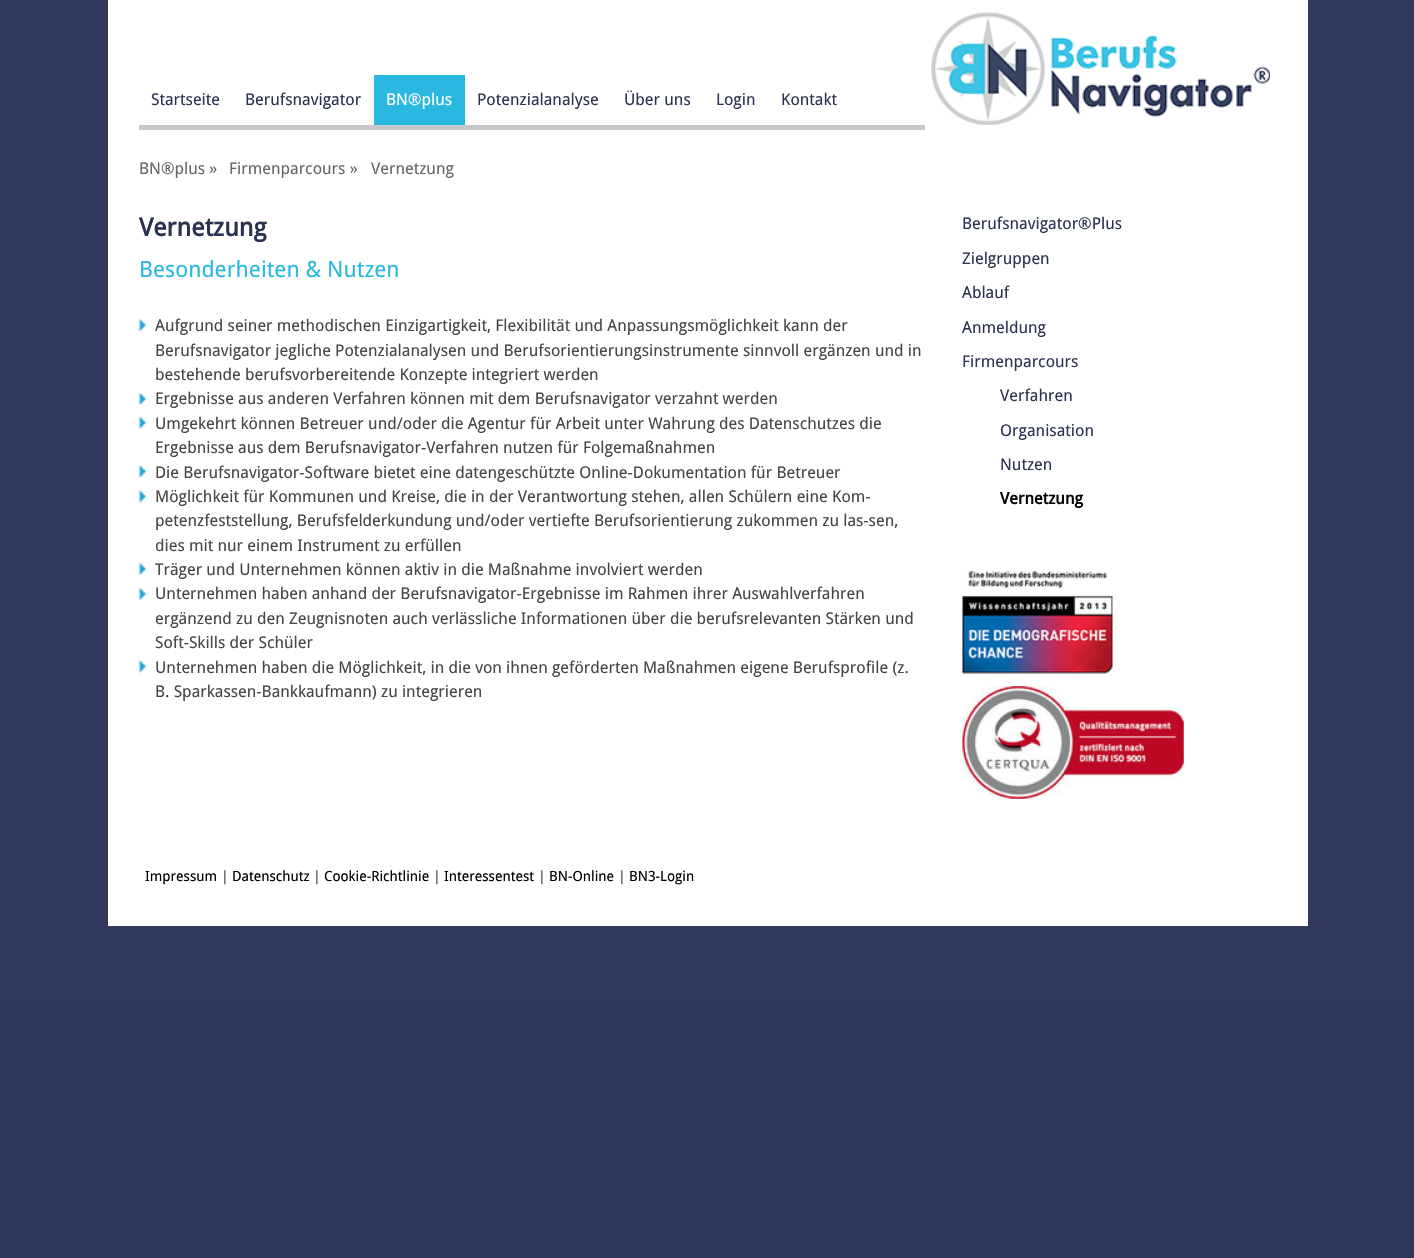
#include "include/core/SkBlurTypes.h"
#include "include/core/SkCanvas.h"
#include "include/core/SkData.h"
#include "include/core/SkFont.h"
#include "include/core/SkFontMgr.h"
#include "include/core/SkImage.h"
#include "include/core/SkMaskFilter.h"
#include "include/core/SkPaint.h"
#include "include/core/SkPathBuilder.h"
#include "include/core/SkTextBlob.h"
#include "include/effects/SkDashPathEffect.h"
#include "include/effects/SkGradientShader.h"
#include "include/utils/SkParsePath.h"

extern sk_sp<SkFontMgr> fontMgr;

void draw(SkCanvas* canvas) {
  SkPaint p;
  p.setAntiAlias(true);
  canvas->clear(SkColorSetRGB(48, 57, 93));
  p.setColor(SkColorSetRGB(47, 55, 88));
  canvas->drawRect(SkRect::MakeLTRB(0, 1001, 1414, 1258), p);
  p.setColor(SK_ColorWHITE);
  canvas->drawRect(SkRect::MakeLTRB(108, 0, 1308, 926), p);
  p.setColor(SkColorSetRGB(197, 199, 200));
  canvas->drawRect(SkRect::MakeLTRB(139, 125, 925, 130), p);
  p.setColor(SkColorSetRGB(42, 184, 224));
  canvas->drawRect(SkRect::MakeLTRB(374, 75, 465, 125), p);
  canvas->drawImageRect(SkImages::DeferredFromEncodedData(SkData::MakeFromFileName("images/1.png")), SkRect::MakeLTRB(931, 12, 1270, 125), SkSamplingOptions());
  canvas->drawImageRect(SkImages::DeferredFromEncodedData(SkData::MakeFromFileName("images/2.png")), SkRect::MakeLTRB(138, 318, 147, 332), SkSamplingOptions());
  canvas->drawImageRect(SkImages::DeferredFromEncodedData(SkData::MakeFromFileName("images/3.png")), SkRect::MakeLTRB(138, 392, 147, 405), SkSamplingOptions());
  canvas->drawImageRect(SkImages::DeferredFromEncodedData(SkData::MakeFromFileName("images/4.png")), SkRect::MakeLTRB(138, 416, 147, 429), SkSamplingOptions());
  canvas->drawImageRect(SkImages::DeferredFromEncodedData(SkData::MakeFromFileName("images/5.png")), SkRect::MakeLTRB(138, 465, 147, 478), SkSamplingOptions());
  canvas->drawImageRect(SkImages::DeferredFromEncodedData(SkData::MakeFromFileName("images/5.png")), SkRect::MakeLTRB(138, 490, 147, 503), SkSamplingOptions());
  canvas->drawImageRect(SkImages::DeferredFromEncodedData(SkData::MakeFromFileName("images/3.png")), SkRect::MakeLTRB(138, 562, 147, 575), SkSamplingOptions());
  canvas->drawImageRect(SkImages::DeferredFromEncodedData(SkData::MakeFromFileName("images/6.png")), SkRect::MakeLTRB(138, 587, 147, 600), SkSamplingOptions());
  canvas->drawImageRect(SkImages::DeferredFromEncodedData(SkData::MakeFromFileName("images/5.png")), SkRect::MakeLTRB(138, 660, 147, 673), SkSamplingOptions());
  canvas->drawImageRect(SkImages::DeferredFromEncodedData(SkData::MakeFromFileName("images/7.png")), SkRect::MakeLTRB(962, 571, 1113, 674), SkSamplingOptions());
  canvas->drawImageRect(SkImages::DeferredFromEncodedData(SkData::MakeFromFileName("images/8.png")), SkRect::MakeLTRB(962, 686, 1184, 799), SkSamplingOptions());
  SkFont font1(fontMgr->matchFamilyStyle("Droid Sans", SkFontStyle::Normal()), 16.25f);
  font1.setSubpixel(true);
  p.setColor(SkColorSetRGB(44, 51, 80));
  canvas->drawString("Startseite", 151, 105, font1, p);
  canvas->drawString("Berufsnavigator", 245, 105, font1, p);
  p.setColor(SK_ColorWHITE);
  canvas->drawString("BN®plus", 386, 105, font1, p);
  p.setColor(SkColorSetRGB(44, 51, 80));
  canvas->drawString("Potenzialanalyse", 477, 105, font1, p);
  canvas->drawString("Über uns", 624, 105, font1, p);
  canvas->drawString("Login", 716, 105, font1, p);
  canvas->drawString("Kontakt", 781, 105, font1, p);
  p.setColor(SkColorSetRGB(102, 102, 102));
  canvas->drawString("BN®plus »", 139, 174, font1, p);
  canvas->drawString("Firmenparcours »", 229, 174, font1, p);
  canvas->drawString("Vernetzung", 371, 174, font1, p);
  SkFont font2(fontMgr->matchFamilyStyle("Droid Sans", SkFontStyle::Bold()), 25);
  font2.setSubpixel(true);
  p.setColor(SkColorSetRGB(44, 51, 80));
  canvas->drawString("Vernetzung", 139, 236, font2, p);
  SkFont font3(fontMgr->matchFamilyStyle("Droid Sans", SkFontStyle::Normal()), 22.5f);
  font3.setSubpixel(true);
  p.setColor(SkColorSetRGB(42, 184, 224));
  canvas->drawString("Besonderheiten & Nutzen", 139, 277, font3, p);
  p.setColor(SkColorSetRGB(67, 71, 69));
  canvas->drawString("Aufgrund seiner methodischen Einzigartigkeit, Flexibilität und Anpassungsmöglichkeit kann der", 155, 331, font1, p);
  canvas->drawString("Berufsnavigator jegliche Potenzialanalysen und Berufsorientierungsinstrumente sinnvoll ergänzen und in", 155, 356, font1, p);
  canvas->drawString("bestehende berufsvorbereitende Konzepte integriert werden", 155, 380, font1, p);
  canvas->drawString("Ergebnisse aus anderen Verfahren können mit dem Berufsnavigator verzahnt werden", 155, 404, font1, p);
  canvas->drawString("Umgekehrt können Betreuer und/oder die Agentur für Arbeit unter Wahrung des Datenschutzes die", 155, 429, font1, p);
  canvas->drawString("Ergebnisse aus dem Berufsnavigator-Verfahren nutzen für Folgemaßnahmen", 155, 453, font1, p);
  canvas->drawString("Die Berufsnavigator-Software bietet eine datengeschützte Online-Dokumentation für Betreuer", 155, 478, font1, p);
  canvas->drawString("Möglichkeit für Kommunen und Kreise, die in der Verantwortung stehen, allen Schülern eine Kom-", 155, 502, font1, p);
  canvas->drawString("petenzfeststellung, Berufsfelderkundung und/oder vertiefte Berufsorientierung zukommen zu las-sen,", 155, 526, font1, p);
  canvas->drawString("dies mit nur einem Instrument zu erfüllen", 155, 551, font1, p);
  canvas->drawString("Träger und Unternehmen können aktiv in die Maßnahme involviert werden", 155, 575, font1, p);
  canvas->drawString("Unternehmen haben anhand der Berufsnavigator-Ergebnisse im Rahmen ihrer Auswahlverfahren", 155, 599, font1, p);
  canvas->drawString("ergänzend zu den Zeugnisnoten auch verlässliche Informationen über die berufsrelevanten Stärken und", 155, 624, font1, p);
  canvas->drawString("Soft-Skills der Schüler", 155, 648, font1, p);
  canvas->drawString("Unternehmen haben die Möglichkeit, in die von ihnen geförderten Maßnahmen eigene Berufsprofile (z.", 155, 673, font1, p);
  canvas->drawString("B. Sparkassen-Bankkaufmann) zu integrieren", 155, 697, font1, p);
  p.setColor(SkColorSetRGB(44, 51, 80));
  canvas->drawString("Berufsnavigator®Plus", 962, 229, font1, p);
  canvas->drawString("Zielgruppen", 962, 264, font1, p);
  canvas->drawString("Ablauf", 962, 298, font1, p);
  canvas->drawString("Anmeldung", 962, 333, font1, p);
  canvas->drawString("Firmenparcours", 962, 367, font1, p);
  canvas->drawString("Verfahren", 1000, 401, font1, p);
  canvas->drawString("Organisation", 1000, 436, font1, p);
  canvas->drawString("Nutzen", 1000, 470, font1, p);
  SkFont font4(fontMgr->matchFamilyStyle("Droid Sans", SkFontStyle::Bold()), 16.25f);
  font4.setSubpixel(true);
  p.setColor(SK_ColorBLACK);
  canvas->drawString("Vernetzung", 1000, 504, font4, p);
  SkFont font5(fontMgr->matchFamilyStyle("Droid Sans", SkFontStyle::Normal()), 14);
  font5.setSubpixel(true);
  canvas->drawString("Impressum", 145, 881, font5, p);
  p.setColor(SkColorSetRGB(67, 71, 69));
  canvas->drawString("|", 221, 881, font5, p);
  p.setColor(SK_ColorBLACK);
  canvas->drawString("Datenschutz", 232, 881, font5, p);
  p.setColor(SkColorSetRGB(67, 71, 69));
  canvas->drawString("|", 313, 881, font5, p);
  p.setColor(SK_ColorBLACK);
  canvas->drawString("Cookie-Richtlinie", 324, 881, font5, p);
  p.setColor(SkColorSetRGB(67, 71, 69));
  canvas->drawString("|", 433, 881, font5, p);
  p.setColor(SK_ColorBLACK);
  canvas->drawString("Interessentest", 444, 881, font5, p);
  p.setColor(SkColorSetRGB(67, 71, 69));
  canvas->drawString("|", 538, 881, font5, p);
  p.setColor(SK_ColorBLACK);
  canvas->drawString("BN-Online", 549, 881, font5, p);
  p.setColor(SkColorSetRGB(67, 71, 69));
  canvas->drawString("|", 618, 881, font5, p);
  p.setColor(SK_ColorBLACK);
  canvas->drawString("BN3-Login", 629, 881, font5, p);
}
